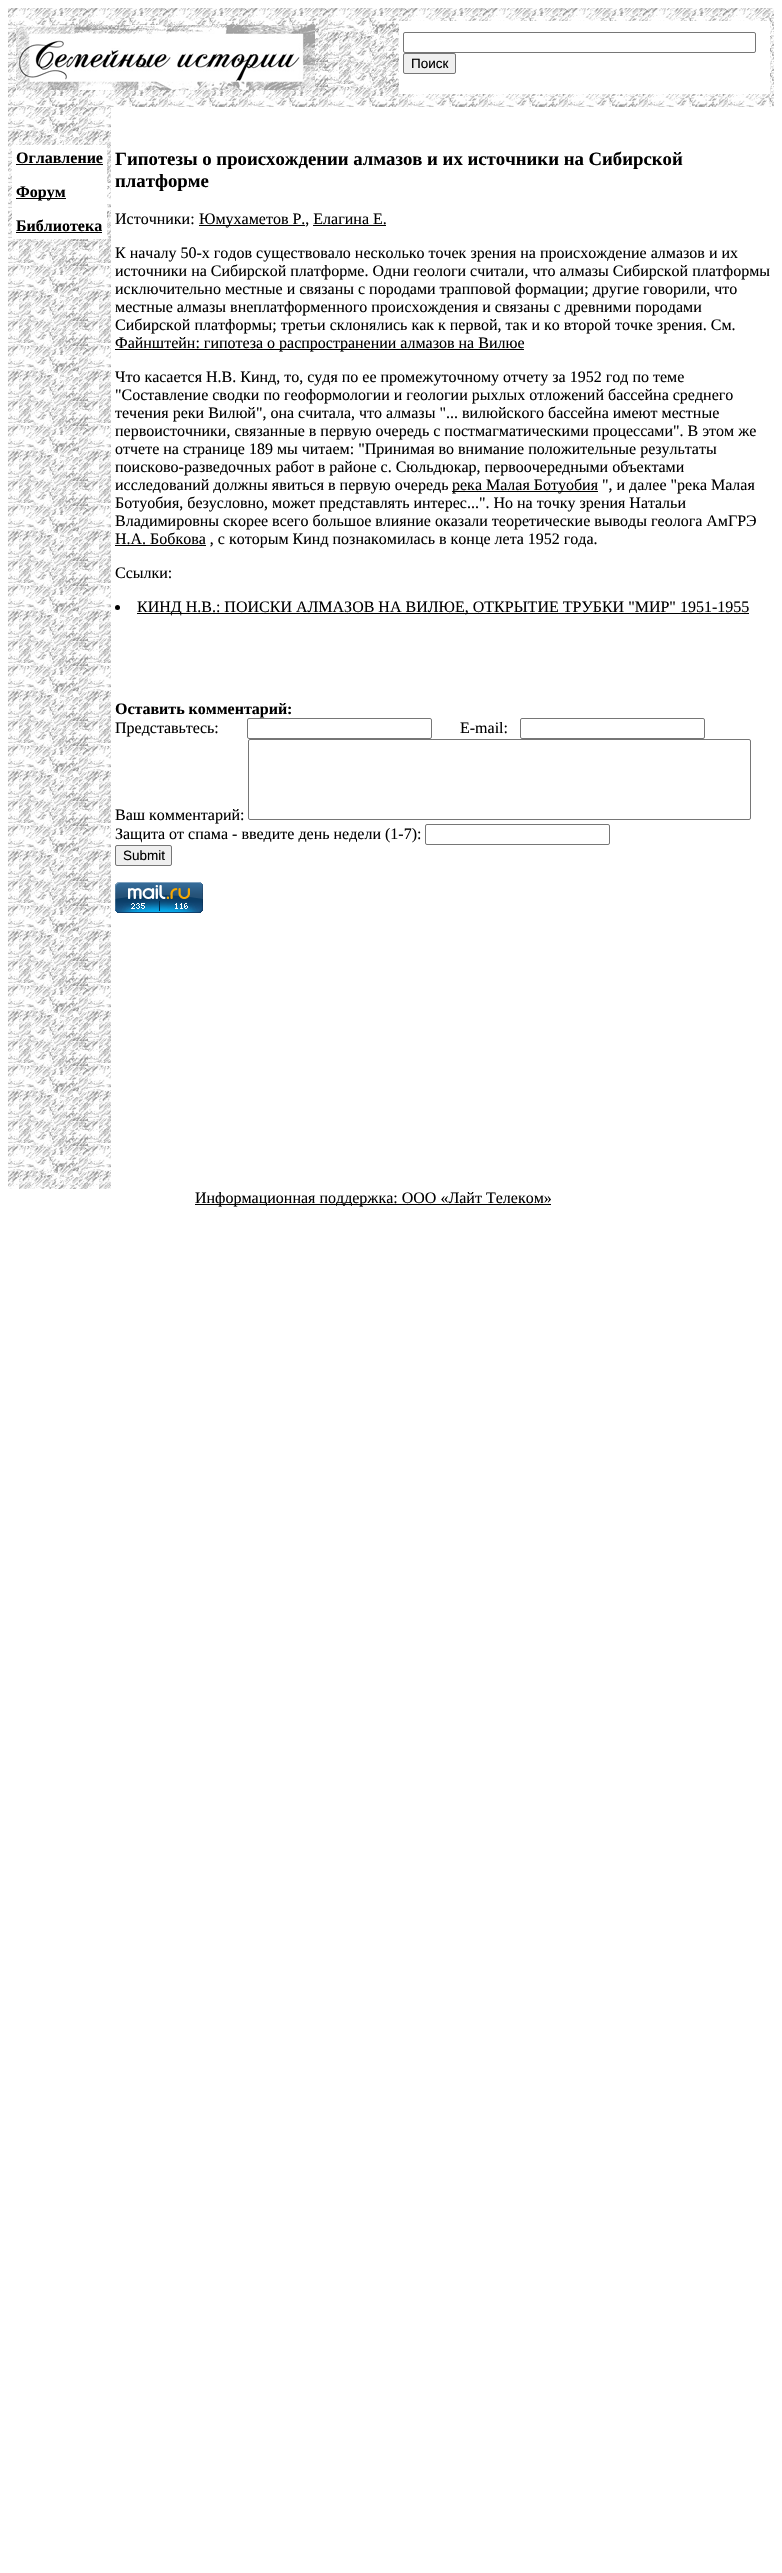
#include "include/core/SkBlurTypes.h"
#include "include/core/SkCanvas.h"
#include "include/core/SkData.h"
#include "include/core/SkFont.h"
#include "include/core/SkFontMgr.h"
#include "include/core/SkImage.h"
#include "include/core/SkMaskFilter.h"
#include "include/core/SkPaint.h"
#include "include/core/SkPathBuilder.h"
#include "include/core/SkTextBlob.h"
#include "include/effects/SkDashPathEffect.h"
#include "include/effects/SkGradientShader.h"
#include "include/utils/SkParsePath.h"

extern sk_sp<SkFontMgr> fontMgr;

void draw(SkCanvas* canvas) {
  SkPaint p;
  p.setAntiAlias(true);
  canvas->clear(SK_ColorWHITE);
  canvas->drawImageRect(SkImages::DeferredFromEncodedData(SkData::MakeFromFileName("images/1.png")), SkRect::MakeLTRB(8, 8, 774, 107), SkSamplingOptions());
  canvas->drawImageRect(SkImages::DeferredFromEncodedData(SkData::MakeFromFileName("images/2.png")), SkRect::MakeLTRB(16, 25, 315, 90), SkSamplingOptions());
  p.setColor(SK_ColorWHITE);
  canvas->drawRect(SkRect::MakeLTRB(399, 21, 770, 94), p);
  p.setStyle(SkPaint::kStroke_Style);
  p.setStrokeWidth(1);
  p.setColor(SkColorSetRGB(118, 118, 118));
  canvas->drawRoundRect(SkRect::MakeLTRB(403.5f, 32.5f, 755.5f, 52.5f), 1.5f, 1.5f, p);
  p.setStyle(SkPaint::kFill_Style);
  p.setColor(SkColorSetRGB(239, 239, 239));
  canvas->drawRoundRect(SkRect::MakeLTRB(403.5f, 53.5f, 455.5f, 73.5f), 1.5f, 1.5f, p);
  p.setStyle(SkPaint::kStroke_Style);
  p.setColor(SkColorSetRGB(118, 118, 118));
  canvas->drawRoundRect(SkRect::MakeLTRB(403.5f, 53.5f, 455.5f, 73.5f), 1.5f, 1.5f, p);
  canvas->drawImageRect(SkImages::DeferredFromEncodedData(SkData::MakeFromFileName("images/3.png")), SkRect::MakeLTRB(8, 107, 111, 1189), SkSamplingOptions());
  p.setStyle(SkPaint::kFill_Style);
  p.setColor(SK_ColorWHITE);
  canvas->drawRect(SkRect::MakeLTRB(12, 145, 107, 239), p);
  p.setColor(SK_ColorBLACK);
  canvas->drawRect(SkRect::MakeLTRB(16, 164, 103, 165), p);
  canvas->drawRect(SkRect::MakeLTRB(16, 198, 66, 199), p);
  canvas->drawRect(SkRect::MakeLTRB(16, 232, 102, 233), p);
  canvas->drawRect(SkRect::MakeLTRB(199, 225, 305, 226), p);
  canvas->drawRect(SkRect::MakeLTRB(313, 225, 386, 226), p);
  canvas->drawRect(SkRect::MakeLTRB(115, 349, 524, 350), p);
  canvas->drawRect(SkRect::MakeLTRB(452, 491, 598, 492), p);
  canvas->drawRect(SkRect::MakeLTRB(115, 545, 206, 546), p);
  canvas->drawCircle(117.5f, 607.5f, 2.5f, p);
  canvas->drawRect(SkRect::MakeLTRB(137, 613, 749, 614), p);
  p.setStyle(SkPaint::kStroke_Style);
  p.setColor(SkColorSetRGB(118, 118, 118));
  canvas->drawRoundRect(SkRect::MakeLTRB(247.5f, 718.5f, 431.5f, 738.5f), 1.5f, 1.5f, p);
  canvas->drawRoundRect(SkRect::MakeLTRB(520.5f, 718.5f, 704.5f, 738.5f), 1.5f, 1.5f, p);
  canvas->drawRoundRect(SkRect::MakeLTRB(248.5f, 739.5f, 750.5f, 819.5f), 1.5f, 1.5f, p);
  canvas->drawRoundRect(SkRect::MakeLTRB(425.5f, 824.5f, 609.5f, 844.5f), 1.5f, 1.5f, p);
  p.setStyle(SkPaint::kFill_Style);
  p.setColor(SkColorSetRGB(239, 239, 239));
  canvas->drawRoundRect(SkRect::MakeLTRB(115.5f, 845.5f, 171.5f, 865.5f), 1.5f, 1.5f, p);
  p.setStyle(SkPaint::kStroke_Style);
  p.setColor(SkColorSetRGB(118, 118, 118));
  canvas->drawRoundRect(SkRect::MakeLTRB(115.5f, 845.5f, 171.5f, 865.5f), 1.5f, 1.5f, p);
  canvas->drawImageRect(SkImages::DeferredFromEncodedData(SkData::MakeFromFileName("images/4.png")), SkRect::MakeLTRB(115, 882, 203, 913), SkSamplingOptions());
  p.setStyle(SkPaint::kFill_Style);
  p.setColor(SK_ColorBLACK);
  canvas->drawRect(SkRect::MakeLTRB(195, 1204, 551, 1205), p);
  SkFont font1(fontMgr->matchFamilyStyle("Liberation Sans", SkFontStyle::Normal()), 13.5f);
  font1.setSubpixel(true);
  canvas->drawString("Поиск", 411, 68, font1, p);
  SkFont font2(fontMgr->matchFamilyStyle("Liberation Serif", SkFontStyle::Bold()), 16);
  font2.setSubpixel(true);
  canvas->drawString("Оглавление", 16, 163, font2, p);
  canvas->drawString("Форум", 16, 197, font2, p);
  canvas->drawString("Библиотека", 16, 231, font2, p);
  SkFont font3(fontMgr->matchFamilyStyle("Liberation Serif", SkFontStyle::Bold()), 18.75f);
  font3.setSubpixel(true);
  canvas->drawString("Гипотезы о происхождении алмазов и их источники на Сибирской", 115, 165, font3, p);
  canvas->drawString("платформе", 115, 187, font3, p);
  SkFont font4(fontMgr->matchFamilyStyle("Liberation Serif", SkFontStyle::Normal()), 16);
  font4.setSubpixel(true);
  canvas->drawString("Источники:", 115, 224, font4, p);
  canvas->drawString("Юмухаметов Р., Елагина Е.", 199, 224, font4, p);
  canvas->drawString("К началу 50-х годов существовало несколько точек зрения на происхождение алмазов и их", 115, 258, font4, p);
  canvas->drawString("источники на Сибирской платформе. Одни геологи считали, что алмазы Сибирской платформы", 115, 276, font4, p);
  canvas->drawString("исключительно местные и связаны с породами трапповой формации; другие говорили, что", 115, 294, font4, p);
  canvas->drawString("местные алмазы внеплатформенного происхождения и связаны с древними породами", 115, 312, font4, p);
  canvas->drawString("Сибирской платформы; третьи склонялись как к первой, так и ко второй точке зрения. См.", 115, 330, font4, p);
  canvas->drawString("Файнштейн: гипотеза о распространении алмазов на Вилюе", 115, 348, font4, p);
  canvas->drawString("Что касается Н.В. Кинд, то, судя по ее промежуточному отчету за 1952 год по теме", 115, 382, font4, p);
  canvas->drawString("\"Составление сводки по геоформологии и геологии рыхлых отложений бассейна среднего", 115, 400, font4, p);
  canvas->drawString("течения реки Вилюй\", она считала, что алмазы \"... вилюйского бассейна имеют местные", 115, 418, font4, p);
  canvas->drawString("первоисточники, связанные в первую очередь с постмагматическими процессами\". В этом же", 115, 436, font4, p);
  canvas->drawString("отчете на странице 189 мы читаем: \"Принимая во внимание положительные результаты", 115, 454, font4, p);
  canvas->drawString("поисково-разведочных работ в районе с. Сюльдюкар, первоочередными объектами", 115, 472, font4, p);
  canvas->drawString("исследований должны явиться в первую очередь", 115, 490, font4, p);
  canvas->drawString("река Малая Ботуобия \", и далее \"река Малая", 452, 490, font4, p);
  canvas->drawString("Ботуобия, безусловно, может представлять интерес...\". Но на точку зрения Натальи", 115, 508, font4, p);
  canvas->drawString("Владимировны скорее всего большое влияние оказали теоретические выводы геолога АмГРЭ", 115, 526, font4, p);
  canvas->drawString("Н.А. Бобкова , с которым Кинд познакомилась в конце лета 1952 года.", 115, 544, font4, p);
  canvas->drawString("Ссылки:", 115, 578, font4, p);
  canvas->drawString("КИНД Н.В.: ПОИСКИ АЛМАЗОВ НА ВИЛЮЕ, ОТКРЫТИЕ ТРУБКИ \"МИР\" 1951-1955", 137, 612, font4, p);
  canvas->drawString("Оставить комментарий:", 115, 714, font2, p);
  canvas->drawString("Представьтесь:", 115, 733, font4, p);
  canvas->drawString("E-mail:", 460, 733, font4, p);
  canvas->drawString("Ваш комментарий:", 115, 820, font4, p);
  canvas->drawString("Защита от спама - введите день недели (1-7):", 115, 839, font4, p);
  canvas->drawString("Submit", 123, 860, font1, p);
  canvas->drawString("Информационная поддержка: ООО «Лайт Телеком»", 195, 1203, font4, p);
}
